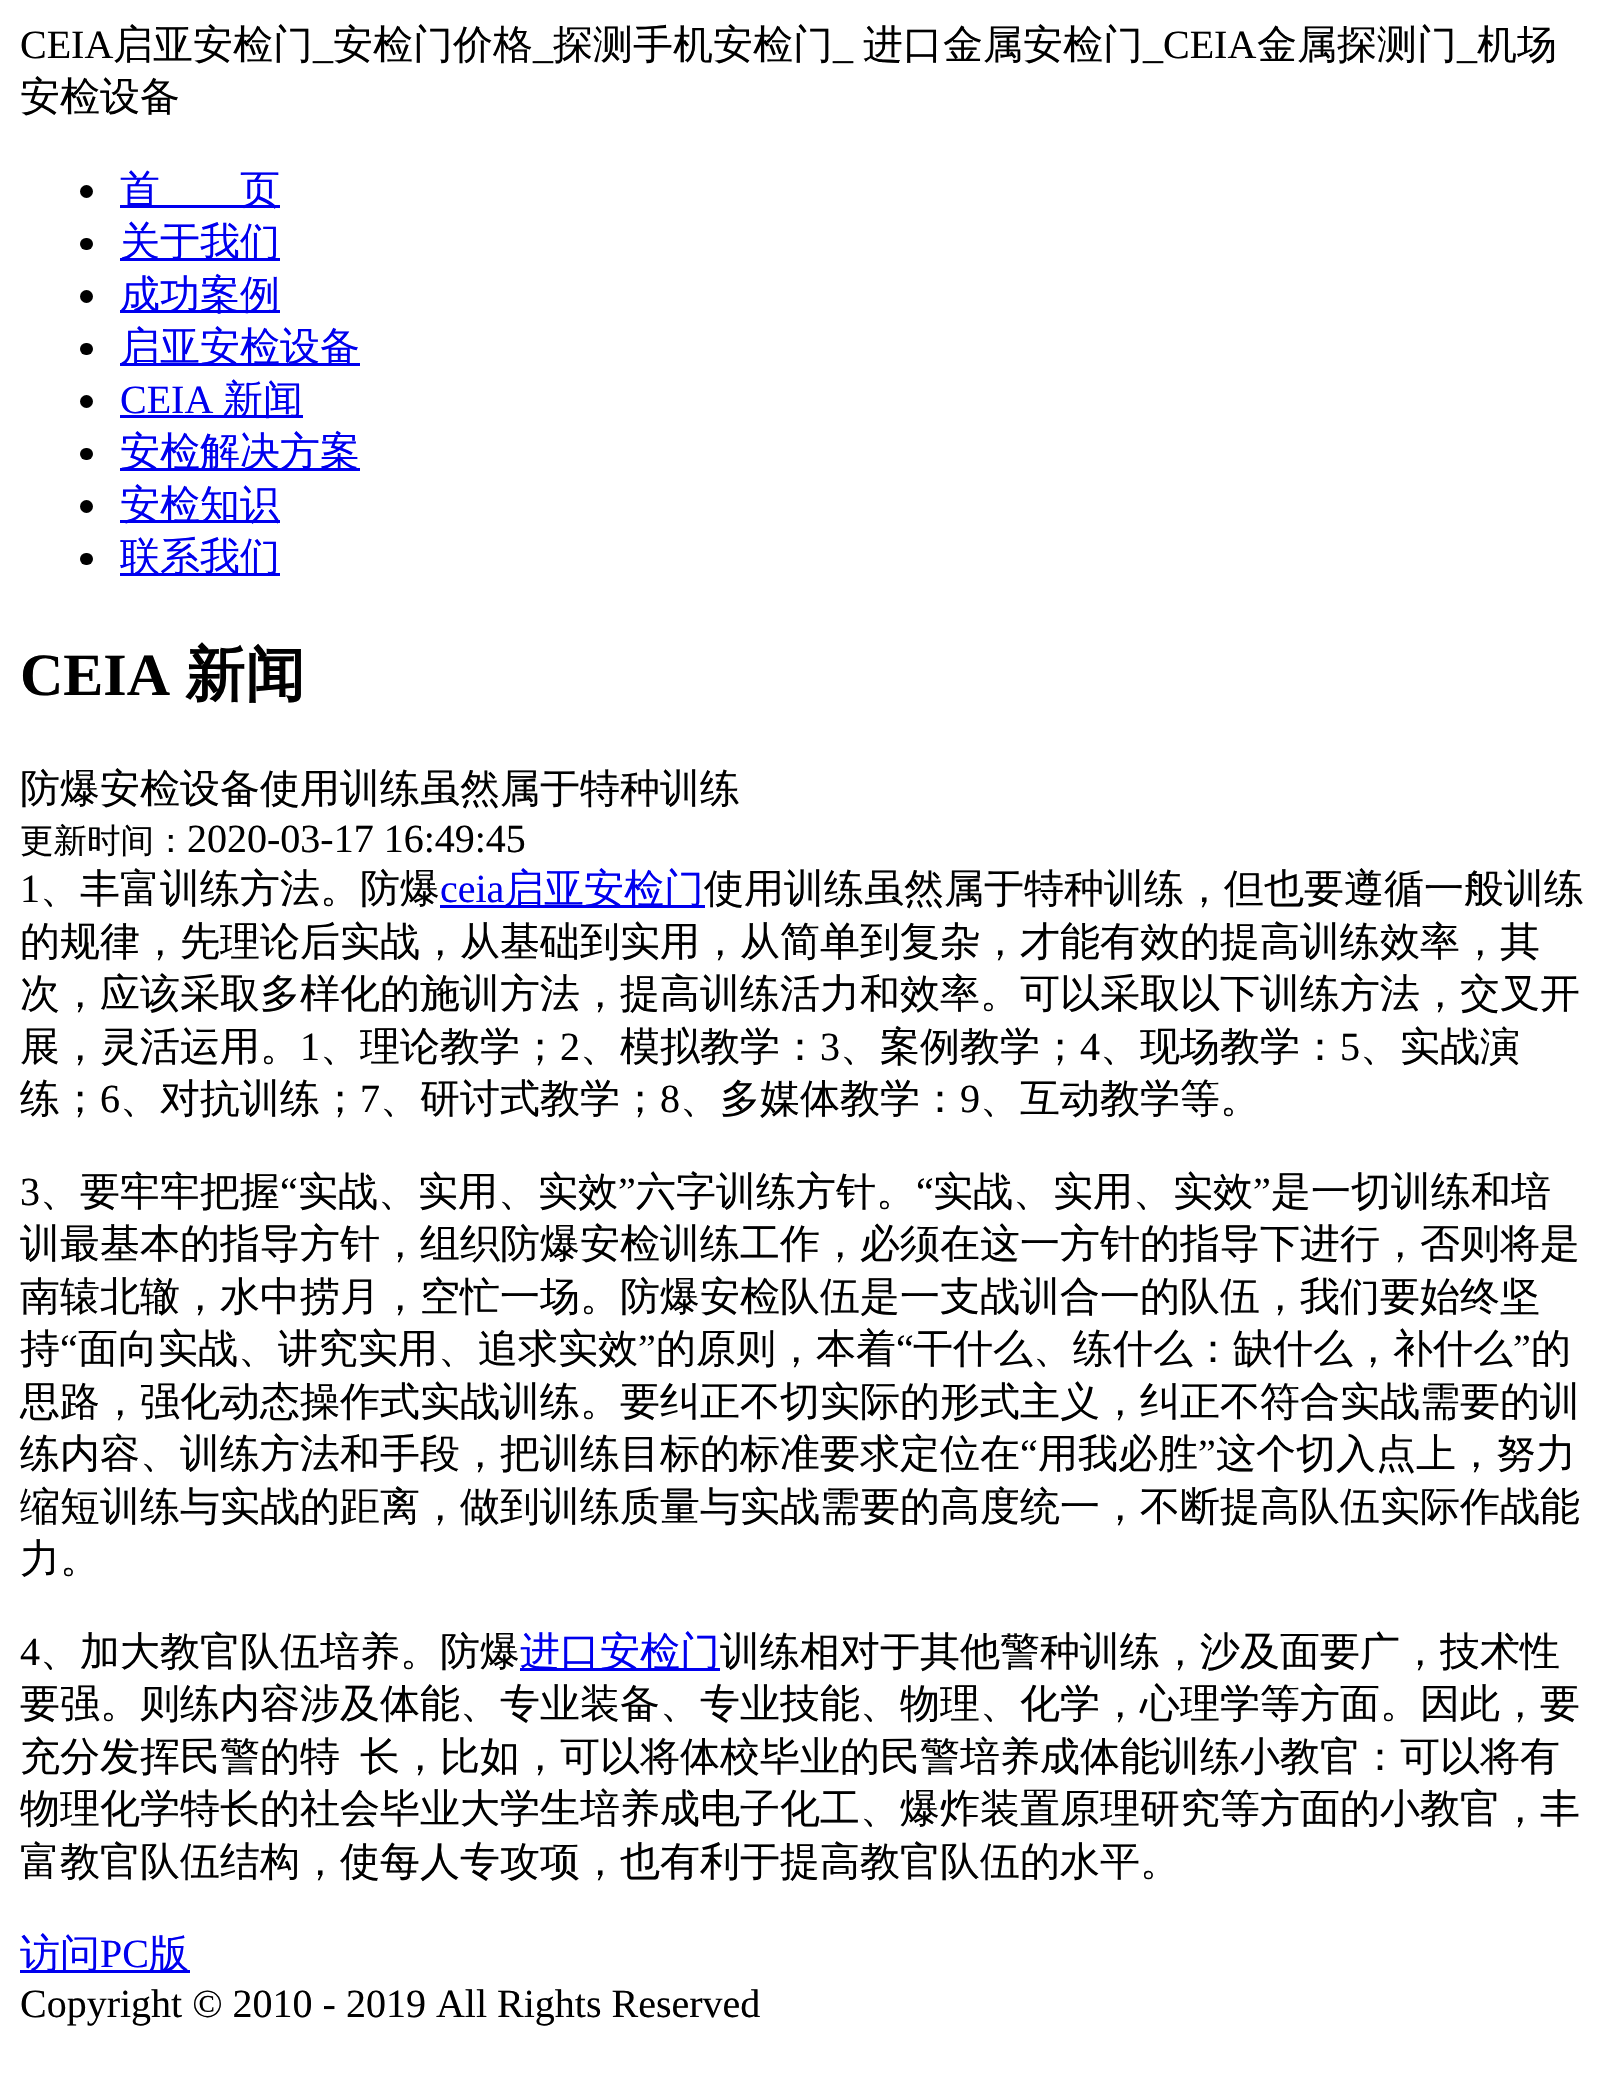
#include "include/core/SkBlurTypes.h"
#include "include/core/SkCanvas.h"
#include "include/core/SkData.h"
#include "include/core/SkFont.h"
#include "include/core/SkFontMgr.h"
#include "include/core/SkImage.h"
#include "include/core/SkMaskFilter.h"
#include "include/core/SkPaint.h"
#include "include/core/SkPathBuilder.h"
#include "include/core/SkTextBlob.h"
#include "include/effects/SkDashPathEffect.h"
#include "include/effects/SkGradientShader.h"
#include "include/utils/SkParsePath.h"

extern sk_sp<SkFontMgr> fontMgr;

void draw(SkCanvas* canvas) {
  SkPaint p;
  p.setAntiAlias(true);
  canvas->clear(SK_ColorWHITE);
  p.setColor(SK_ColorBLACK);
  canvas->drawCircle(86.5f, 191.5f, 6.5f, p);
  p.setColor(SkColorSetRGB(0, 0, 238));
  canvas->drawRect(SkRect::MakeLTRB(120, 205, 280, 208), p);
  p.setColor(SK_ColorBLACK);
  canvas->drawRoundRect(SkRect::MakeLTRB(80, 238, 93, 250), 6, 6, p);
  p.setColor(SkColorSetRGB(0, 0, 238));
  canvas->drawRect(SkRect::MakeLTRB(120, 258, 280, 261), p);
  p.setColor(SK_ColorBLACK);
  canvas->drawCircle(86.5f, 296.5f, 6.5f, p);
  p.setColor(SkColorSetRGB(0, 0, 238));
  canvas->drawRect(SkRect::MakeLTRB(120, 310, 280, 313), p);
  p.setColor(SK_ColorBLACK);
  canvas->drawRoundRect(SkRect::MakeLTRB(80, 343, 93, 355), 6, 6, p);
  p.setColor(SkColorSetRGB(0, 0, 238));
  canvas->drawRect(SkRect::MakeLTRB(120, 363, 360, 366), p);
  p.setColor(SK_ColorBLACK);
  canvas->drawCircle(86.5f, 401.5f, 6.5f, p);
  p.setColor(SkColorSetRGB(0, 0, 238));
  canvas->drawRect(SkRect::MakeLTRB(120, 415, 303, 418), p);
  p.setColor(SK_ColorBLACK);
  canvas->drawRoundRect(SkRect::MakeLTRB(80, 448, 93, 460), 6, 6, p);
  p.setColor(SkColorSetRGB(0, 0, 238));
  canvas->drawRect(SkRect::MakeLTRB(120, 468, 360, 471), p);
  p.setColor(SK_ColorBLACK);
  canvas->drawCircle(86.5f, 506.5f, 6.5f, p);
  p.setColor(SkColorSetRGB(0, 0, 238));
  canvas->drawRect(SkRect::MakeLTRB(120, 520, 280, 523), p);
  p.setColor(SK_ColorBLACK);
  canvas->drawRoundRect(SkRect::MakeLTRB(80, 553, 93, 565), 6, 6, p);
  p.setColor(SkColorSetRGB(0, 0, 238));
  canvas->drawRect(SkRect::MakeLTRB(120, 573, 280, 576), p);
  canvas->drawRect(SkRect::MakeLTRB(440, 905, 705, 908), p);
  canvas->drawRect(SkRect::MakeLTRB(520, 1668, 720, 1671), p);
  canvas->drawRect(SkRect::MakeLTRB(20, 1970, 190, 1973), p);
  SkFont font1(fontMgr->matchFamilyStyle("Liberation Serif", SkFontStyle::Normal()), 40);
  font1.setSubpixel(true);
  p.setColor(SK_ColorBLACK);
  canvas->drawString("CEIA", 20, 58, font1, p);
  SkFont font2(fontMgr->matchFamilyStyle("WenQuanYi Zen Hei", SkFontStyle(500, SkFontStyle::kNormal_Width, SkFontStyle::kUpright_Slant)), 40);
  font2.setSubpixel(true);
  canvas->drawString("启亚安检门", 113, 58, font2, p);
  canvas->drawString("_", 313, 58, font1, p);
  canvas->drawString("安检门价格", 333, 58, font2, p);
  canvas->drawString("_", 533, 58, font1, p);
  canvas->drawString("探测手机安检门", 553, 58, font2, p);
  canvas->drawString("_", 833, 58, font1, p);
  canvas->drawString("进口金属安检门", 863, 58, font2, p);
  canvas->drawString("_CEIA", 1143, 58, font1, p);
  canvas->drawString("金属探测门", 1257, 58, font2, p);
  canvas->drawString("_", 1457, 58, font1, p);
  canvas->drawString("机场", 1477, 58, font2, p);
  canvas->drawString("安检设备", 20, 110, font2, p);
  p.setColor(SkColorSetRGB(0, 0, 238));
  canvas->drawString("首　　页", 120, 203, font2, p);
  canvas->drawString("关于我们", 120, 255, font2, p);
  canvas->drawString("成功案例", 120, 308, font2, p);
  canvas->drawString("启亚安检设备", 120, 360, font2, p);
  canvas->drawString("CEIA", 120, 413, font1, p);
  canvas->drawString("新闻", 223, 413, font2, p);
  canvas->drawString("安检解决方案", 120, 465, font2, p);
  canvas->drawString("安检知识", 120, 518, font2, p);
  canvas->drawString("联系我们", 120, 570, font2, p);
  SkFont font3(fontMgr->matchFamilyStyle("Liberation Serif", SkFontStyle::Bold()), 60);
  font3.setSubpixel(true);
  p.setColor(SK_ColorBLACK);
  canvas->drawString("CEIA", 20, 695, font3, p);
  SkFont font4(fontMgr->matchFamilyStyle("WenQuanYi Zen Hei", SkFontStyle::Bold()), 60);
  font4.setSubpixel(true);
  canvas->drawString("新闻", 185, 695, font4, p);
  canvas->drawString("防爆安检设备使用训练虽然属于特种训练", 20, 802, font2, p);
  SkFont font5(fontMgr->matchFamilyStyle("WenQuanYi Zen Hei", SkFontStyle(500, SkFontStyle::kNormal_Width, SkFontStyle::kUpright_Slant)), 33.5f);
  font5.setSubpixel(true);
  canvas->drawString("更新时间：", 20, 852, font5, p);
  canvas->drawString("2020-03-17 16:49:45", 187, 852, font1, p);
  canvas->drawString("1", 20, 902, font1, p);
  canvas->drawString("、丰富训练方法。防爆", 40, 902, font2, p);
  p.setColor(SkColorSetRGB(0, 0, 238));
  canvas->drawString("ceia", 440, 902, font1, p);
  canvas->drawString("启亚安检门", 504, 902, font2, p);
  p.setColor(SK_ColorBLACK);
  canvas->drawString("使用训练虽然属于特种训练，但也要遵循一般训练", 704, 902, font2, p);
  canvas->drawString("的规律，先理论后实战，从基础到实用，从简单到复杂，才能有效的提高训练效率，其", 20, 955, font2, p);
  canvas->drawString("次，应该采取多样化的施训方法，提高训练活力和效率。可以采取以下训练方法，交叉开", 20, 1007, font2, p);
  canvas->drawString("展，灵活运用。", 20, 1060, font2, p);
  canvas->drawString("1", 300, 1060, font1, p);
  canvas->drawString("、理论教学；", 320, 1060, font2, p);
  canvas->drawString("2", 560, 1060, font1, p);
  canvas->drawString("、模拟教学：", 580, 1060, font2, p);
  canvas->drawString("3", 820, 1060, font1, p);
  canvas->drawString("、案例教学；", 840, 1060, font2, p);
  canvas->drawString("4", 1080, 1060, font1, p);
  canvas->drawString("、现场教学：", 1100, 1060, font2, p);
  canvas->drawString("5", 1340, 1060, font1, p);
  canvas->drawString("、实战演", 1360, 1060, font2, p);
  canvas->drawString("练；", 20, 1112, font2, p);
  canvas->drawString("6", 100, 1112, font1, p);
  canvas->drawString("、对抗训练；", 120, 1112, font2, p);
  canvas->drawString("7", 360, 1112, font1, p);
  canvas->drawString("、研讨式教学；", 380, 1112, font2, p);
  canvas->drawString("8", 660, 1112, font1, p);
  canvas->drawString("、多媒体教学：", 680, 1112, font2, p);
  canvas->drawString("9", 960, 1112, font1, p);
  canvas->drawString("、互动教学等。", 980, 1112, font2, p);
  canvas->drawString("3", 20, 1205, font1, p);
  canvas->drawString("、要牢牢把握", 40, 1205, font2, p);
  canvas->drawString("“", 280, 1205, font1, p);
  canvas->drawString("实战、实用、实效", 298, 1205, font2, p);
  canvas->drawString("”", 618, 1205, font1, p);
  canvas->drawString("六字训练方针。", 636, 1205, font2, p);
  canvas->drawString("“", 916, 1205, font1, p);
  canvas->drawString("实战、实用、实效", 933, 1205, font2, p);
  canvas->drawString("”", 1253, 1205, font1, p);
  canvas->drawString("是一切训练和培", 1271, 1205, font2, p);
  canvas->drawString("训最基本的指导方针，组织防爆安检训练工作，必须在这一方针的指导下进行，否则将是", 20, 1257, font2, p);
  canvas->drawString("南辕北辙，水中捞月，空忙一场。防爆安检队伍是一支战训合一的队伍，我们要始终坚", 20, 1310, font2, p);
  canvas->drawString("持", 20, 1362, font2, p);
  canvas->drawString("“", 60, 1362, font1, p);
  canvas->drawString("面向实战、讲究实用、追求实效", 78, 1362, font2, p);
  canvas->drawString("”", 638, 1362, font1, p);
  canvas->drawString("的原则，本着", 656, 1362, font2, p);
  canvas->drawString("“", 896, 1362, font1, p);
  canvas->drawString("干什么、练什么：缺什么，补什么", 913, 1362, font2, p);
  canvas->drawString("”", 1513, 1362, font1, p);
  canvas->drawString("的", 1531, 1362, font2, p);
  canvas->drawString("思路，强化动态操作式实战训练。要纠正不切实际的形式主义，纠正不符合实战需要的训", 20, 1415, font2, p);
  canvas->drawString("练内容、训练方法和手段，把训练目标的标准要求定位在", 20, 1467, font2, p);
  canvas->drawString("“", 1020, 1467, font1, p);
  canvas->drawString("用我必胜", 1038, 1467, font2, p);
  canvas->drawString("”", 1198, 1467, font1, p);
  canvas->drawString("这个切入点上，努力", 1216, 1467, font2, p);
  canvas->drawString("缩短训练与实战的距离，做到训练质量与实战需要的高度统一，不断提高队伍实际作战能", 20, 1520, font2, p);
  canvas->drawString("力。", 20, 1572, font2, p);
  canvas->drawString("4", 20, 1665, font1, p);
  canvas->drawString("、加大教官队伍培养。防爆", 40, 1665, font2, p);
  p.setColor(SkColorSetRGB(0, 0, 238));
  canvas->drawString("进口安检门", 520, 1665, font2, p);
  p.setColor(SK_ColorBLACK);
  canvas->drawString("训练相对于其他警种训练，沙及面要广，技术性", 720, 1665, font2, p);
  canvas->drawString("要强。则练内容涉及体能、专业装备、专业技能、物理、化学，心理学等方面。因此，要", 20, 1717, font2, p);
  canvas->drawString("充分发挥民警的特", 20, 1770, font2, p);
  canvas->drawString("长，比如，可以将体校毕业的民警培养成体能训练小教官：可以将有", 360, 1770, font2, p);
  canvas->drawString("物理化学特长的社会毕业大学生培养成电子化工、爆炸装置原理研究等方面的小教官，丰", 20, 1822, font2, p);
  canvas->drawString("富教官队伍结构，使每人专攻项，也有利于提高教官队伍的水平。", 20, 1875, font2, p);
  p.setColor(SkColorSetRGB(0, 0, 238));
  canvas->drawString("访问", 20, 1967, font2, p);
  canvas->drawString("PC", 100, 1967, font1, p);
  canvas->drawString("版", 149, 1967, font2, p);
  p.setColor(SK_ColorBLACK);
  canvas->drawString("Copyright © 2010 - 2019 All Rights Reserved", 20, 2017, font1, p);
}
